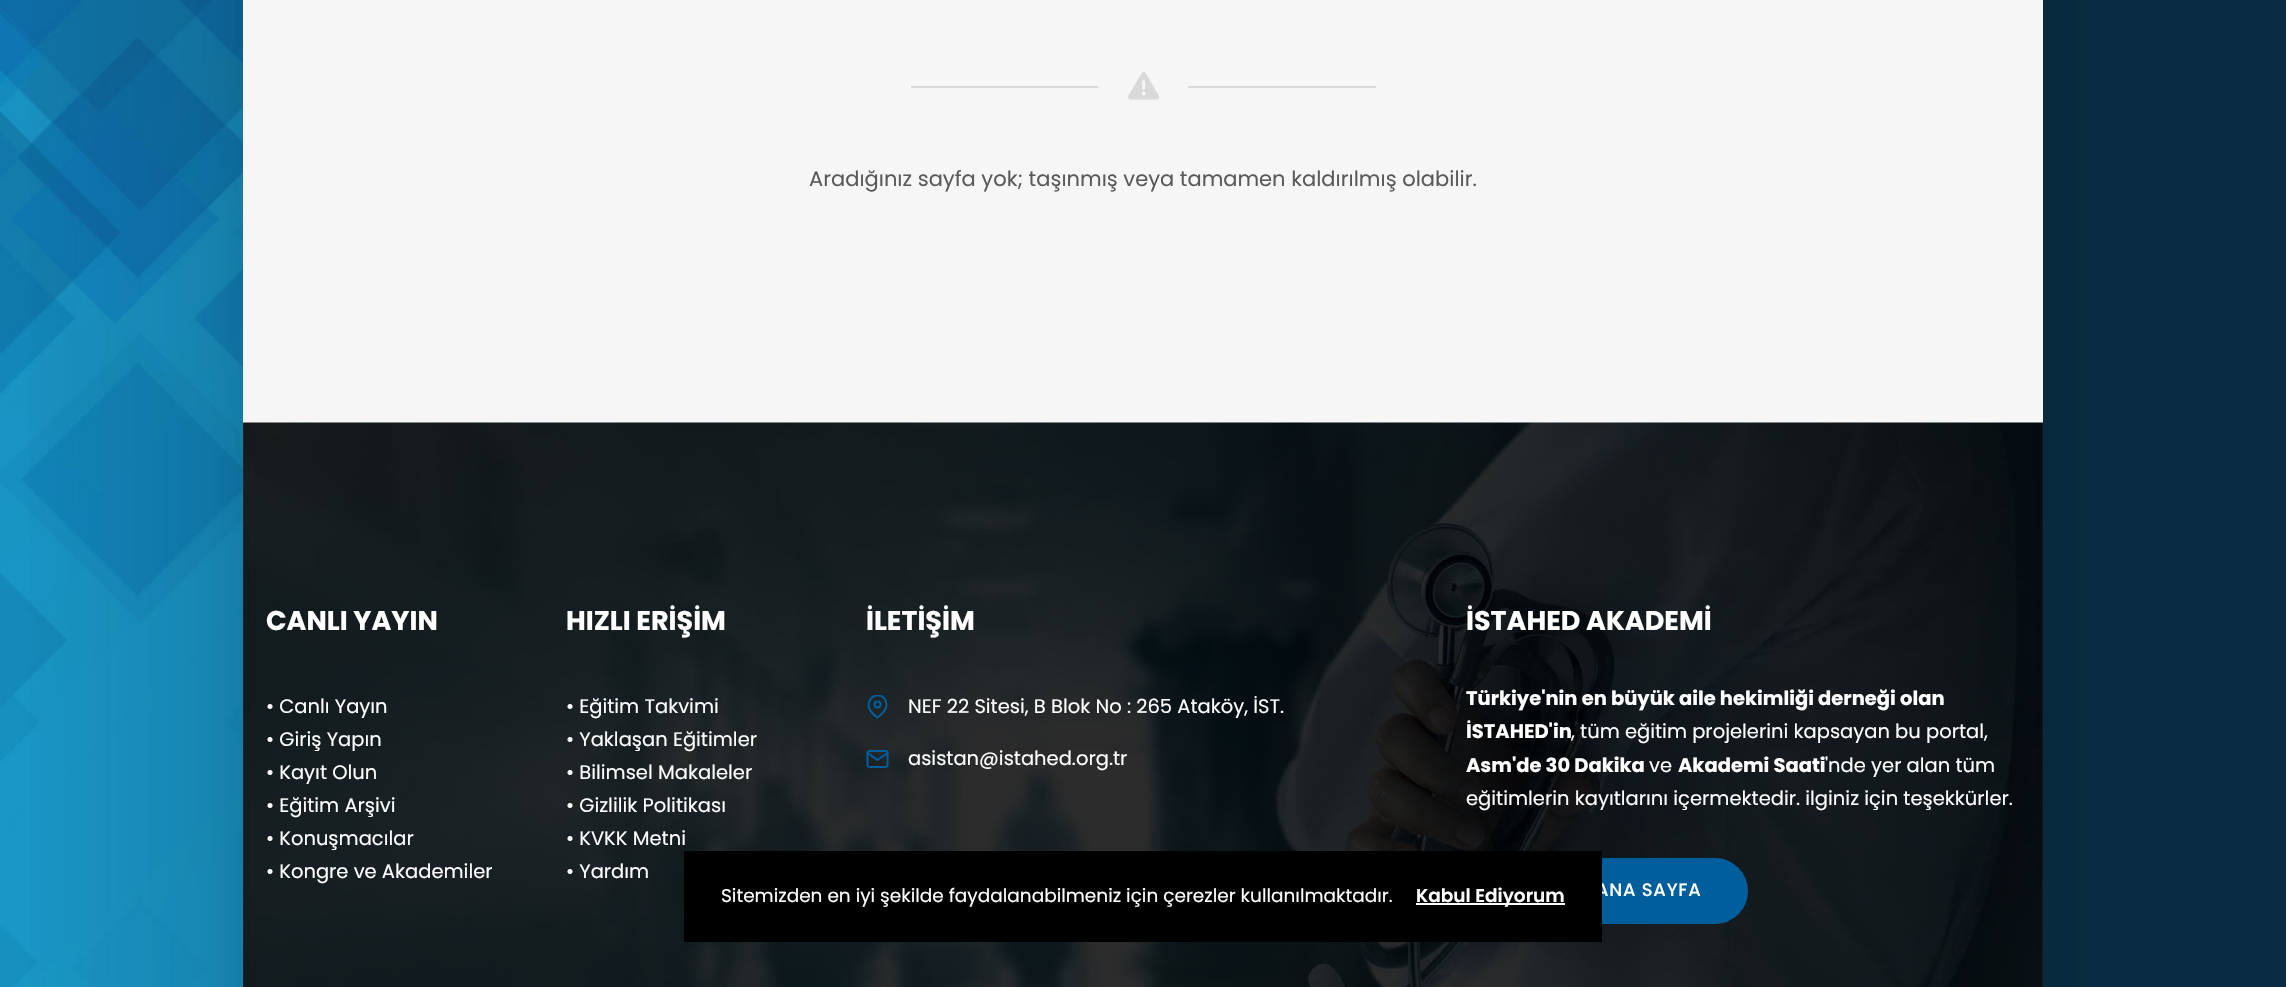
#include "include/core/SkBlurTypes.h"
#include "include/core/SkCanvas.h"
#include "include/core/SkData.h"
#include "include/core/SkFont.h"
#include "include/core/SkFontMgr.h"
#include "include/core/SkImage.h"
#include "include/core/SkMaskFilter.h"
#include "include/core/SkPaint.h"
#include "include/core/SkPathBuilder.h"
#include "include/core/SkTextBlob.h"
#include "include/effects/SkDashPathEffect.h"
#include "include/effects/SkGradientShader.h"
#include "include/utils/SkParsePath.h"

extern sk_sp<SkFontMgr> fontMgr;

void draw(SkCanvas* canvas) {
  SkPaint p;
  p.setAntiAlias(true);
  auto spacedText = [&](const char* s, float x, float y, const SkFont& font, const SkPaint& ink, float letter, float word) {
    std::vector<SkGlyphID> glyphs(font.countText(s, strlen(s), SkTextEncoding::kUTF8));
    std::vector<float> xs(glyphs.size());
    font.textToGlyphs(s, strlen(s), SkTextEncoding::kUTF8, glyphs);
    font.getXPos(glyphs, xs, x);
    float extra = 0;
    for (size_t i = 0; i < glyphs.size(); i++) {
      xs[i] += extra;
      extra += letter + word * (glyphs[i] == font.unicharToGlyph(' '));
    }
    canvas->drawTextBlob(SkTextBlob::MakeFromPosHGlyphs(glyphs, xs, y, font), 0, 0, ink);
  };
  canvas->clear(SK_ColorWHITE);
  canvas->drawImageRect(SkImages::DeferredFromEncodedData(SkData::MakeFromFileName("images/1.png")), SkRect::MakeLTRB(0, 0, 243, 987), SkSamplingOptions());
  {
    const SkColor colors[] = {SkColorSetARGB(0, 8, 43, 65), SkColorSetRGB(8, 43, 65)};
    const float stops[] = {0, 0.6f};
    const SkPoint ends[] = {{0, 494}, {2286, 493}};
    p.setShader(SkGradientShader::MakeLinear(ends, colors, stops, 2, SkTileMode::kClamp));
    p.setAlpha(255);
  }
  canvas->drawRect(SkRect::MakeLTRB(29, 0, 2286, 987), p);
  p.setShader(nullptr);
  p.setColor(SkColorSetARGB(26, 0, 0, 0));
  p.setMaskFilter(SkMaskFilter::MakeBlur(kNormal_SkBlurStyle, 22.5f));
  canvas->drawRect(SkRect::MakeLTRB(243, -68, 2043, 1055), p);
  p.setMaskFilter(nullptr);
  p.setColor(SkColorSetRGB(246, 246, 246));
  canvas->drawRect(SkRect::MakeLTRB(243, 0, 2043, 423), p);
  p.setColor(SkColorSetRGB(217, 217, 217));
  canvas->drawRect(SkRect::MakeLTRB(911, 86, 1098, 88), p);
  canvas->drawImageRect(SkImages::DeferredFromEncodedData(SkData::MakeFromFileName("images/2.png")), SkRect::MakeLTRB(1128, 72, 1159, 100), SkSamplingOptions());
  canvas->drawRect(SkRect::MakeLTRB(1188, 86, 1376, 88), p);
  canvas->drawImageRect(SkImages::DeferredFromEncodedData(SkData::MakeFromFileName("images/3.png")), SkRect::MakeLTRB(243, 422, 2043, 987), SkSamplingOptions());
  canvas->save();
  canvas->clipRect(SkRect::MakeLTRB(866, 695, 890, 719));
  p.setStyle(SkPaint::kStroke_Style);
  p.setStrokeWidth(2);
  p.setStrokeCap(SkPaint::kRound_Cap);
  p.setStrokeJoin(SkPaint::kRound_Join);
  p.setColor(SkColorSetRGB(0, 94, 157));
  canvas->drawPath(SkPathBuilder().moveTo(886.5f, 704.5f).cubicTo(886.5f, 711.5f, 877.5f, 717.5f, 877.5f, 717.5f).cubicTo(858.5f, 705, 874.5f, 689, 884, 698).cubicTo(885.5f, 700, 886.5f, 702, 886.5f, 704.5f).close().detach(), p);
  canvas->restore();
  p.setStrokeCap(SkPaint::kButt_Cap);
  p.setStrokeJoin(SkPaint::kMiter_Join);
  canvas->drawCircle(877.5f, 704.5f, 3, p);
  canvas->drawImageRect(SkImages::DeferredFromEncodedData(SkData::MakeFromFileName("images/4.png")), SkRect::MakeLTRB(866, 750, 889, 768), SkSamplingOptions());
  p.setStyle(SkPaint::kFill_Style);
  canvas->drawRoundRect(SkRect::MakeLTRB(1467, 859, 1747, 923), 32, 32, p);
  p.setStyle(SkPaint::kStroke_Style);
  canvas->drawRoundRect(SkRect::MakeLTRB(1467, 859, 1747, 923), 32, 32, p);
  SkFont font1(fontMgr->matchFamilyStyle("Poppins", SkFontStyle::Normal()), 21);
  font1.setSubpixel(true);
  p.setStyle(SkPaint::kFill_Style);
  p.setColor(SkColorSetRGB(90, 90, 90));
  canvas->drawString("Aradığınız sayfa yok; taşınmış veya tamamen kaldırılmış olabilir.", 809, 186, font1, p);
  SkFont font2(fontMgr->matchFamilyStyle("Poppins", SkFontStyle::Bold()), 27);
  font2.setSubpixel(true);
  p.setColor(SK_ColorWHITE);
  canvas->drawString("CANLI YAYIN", 266, 630, font2, p);
  SkFont font3(fontMgr->matchFamilyStyle("Poppins", SkFontStyle::Normal()), 19.5f);
  font3.setSubpixel(true);
  canvas->drawString("• Canlı Yayın", 266, 713, font3, p);
  canvas->drawString("• Giriş Yapın", 266, 746, font3, p);
  canvas->drawString("• Kayıt Olun", 266, 779, font3, p);
  canvas->drawString("• Eğitim Arşivi", 266, 812, font3, p);
  canvas->drawString("• Konuşmacılar", 266, 845, font3, p);
  canvas->drawString("• Kongre ve Akademiler", 266, 878, font3, p);
  canvas->drawString("HIZLI ERİŞİM", 566, 630, font2, p);
  canvas->drawString("• Eğitim Takvimi", 566, 713, font3, p);
  canvas->drawString("• Yaklaşan Eğitimler", 566, 746, font3, p);
  canvas->drawString("• Bilimsel Makaleler", 566, 779, font3, p);
  canvas->drawString("• Gizlilik Politikası", 566, 812, font3, p);
  canvas->drawString("• KVKK Metni", 566, 845, font3, p);
  canvas->drawString("• Yardım", 566, 878, font3, p);
  canvas->drawString("İLETİŞİM", 866, 630, font2, p);
  canvas->drawString("NEF 22 Sitesi, B Blok No : 265 Ataköy, İST.", 908, 713, font3, p);
  canvas->drawString("asistan@istahed.org.tr", 908, 765, font3, p);
  canvas->drawString("İSTAHED AKADEMİ", 1466, 630, font2, p);
  SkFont font4(fontMgr->matchFamilyStyle("Poppins", SkFontStyle::Bold()), 19.5f);
  font4.setSubpixel(true);
  canvas->drawString("Türkiye'nin en büyük aile hekimliği derneği olan", 1466, 705, font4, p);
  canvas->drawString("İSTAHED'in", 1466, 738, font4, p);
  canvas->drawString(", tüm eğitim projelerini kapsayan bu portal,", 1571, 738, font3, p);
  canvas->drawString("Asm'de 30 Dakika", 1466, 772, font4, p);
  canvas->drawString("ve", 1649, 772, font3, p);
  canvas->drawString("Akademi Saati", 1678, 772, font4, p);
  canvas->drawString("'nde yer alan tüm", 1825, 772, font3, p);
  canvas->drawString("eğitimlerin kayıtlarını içermektedir. ilginiz için teşekkürler.", 1466, 805, font3, p);
  SkFont font5(fontMgr->matchFamilyStyle("Poppins", SkFontStyle(500, SkFontStyle::kNormal_Width, SkFontStyle::kUpright_Slant)), 18);
  font5.setSubpixel(true);
  spacedText("ANA SAYFA", 1596, 896, font5, p, 0.75f, 0);
  p.setColor(SK_ColorBLACK);
  canvas->drawRect(SkRect::MakeLTRB(684, 851, 1602, 942), p);
  SkFont font6(fontMgr->matchFamilyStyle("Poppins", SkFontStyle::Normal()), 18.5f);
  font6.setSubpixel(true);
  p.setColor(SK_ColorWHITE);
  canvas->drawString("Sitemizden en iyi şekilde faydalanabilmeniz için çerezler kullanılmaktadır.", 721, 902, font6, p);
  canvas->drawRect(SkRect::MakeLTRB(1416, 903, 1565, 905), p);
  SkFont font7(fontMgr->matchFamilyStyle("Poppins", SkFontStyle(600, SkFontStyle::kNormal_Width, SkFontStyle::kUpright_Slant)), 18.5f);
  font7.setSubpixel(true);
  canvas->drawString("Kabul Ediyorum", 1416, 902, font7, p);
}
